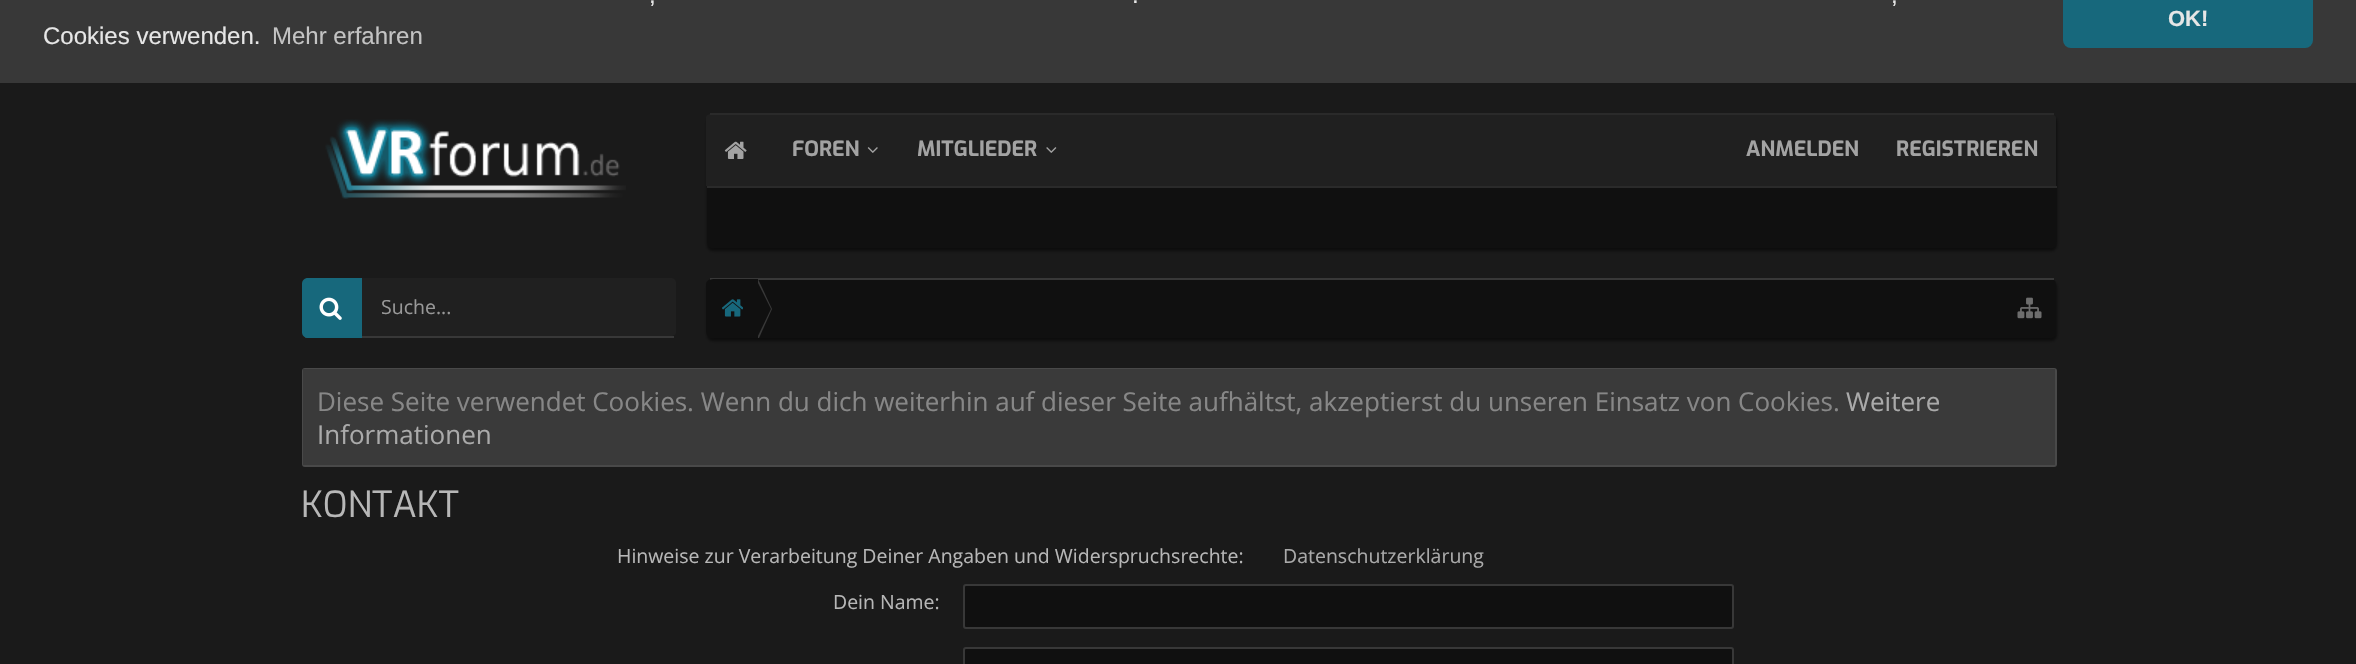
#include "include/core/SkBlurTypes.h"
#include "include/core/SkCanvas.h"
#include "include/core/SkData.h"
#include "include/core/SkFont.h"
#include "include/core/SkFontMgr.h"
#include "include/core/SkImage.h"
#include "include/core/SkMaskFilter.h"
#include "include/core/SkPaint.h"
#include "include/core/SkPathBuilder.h"
#include "include/core/SkTextBlob.h"
#include "include/effects/SkDashPathEffect.h"
#include "include/effects/SkGradientShader.h"
#include "include/utils/SkParsePath.h"

extern sk_sp<SkFontMgr> fontMgr;

void draw(SkCanvas* canvas) {
  SkPaint p;
  p.setAntiAlias(true);
  canvas->clear(SkColorSetRGB(26, 26, 26));
  p.setColor(SkColorSetRGB(56, 56, 56));
  canvas->drawRect(SkRect::MakeLTRB(0, 0, 2356, 83), p);
  p.setColor(SkColorSetRGB(23, 104, 124));
  canvas->drawRoundRect(SkRect::MakeLTRB(2063, -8, 2313, 48), 8, 8, p);
  canvas->drawImageRect(SkImages::DeferredFromEncodedData(SkData::MakeFromFileName("images/1.png")), SkRect::MakeLTRB(325, 119, 626, 199), SkSamplingOptions());
  p.setColor(SkColorSetARGB(128, 0, 0, 0));
  p.setMaskFilter(SkMaskFilter::MakeBlur(kNormal_SkBlurStyle, 1.5f));
  canvas->drawRoundRect(SkRect::MakeLTRB(707, 116, 2057, 251), 6, 6, p);
  p.setMaskFilter(nullptr);
  p.setColor(SkColorSetRGB(32, 32, 32));
  canvas->drawPath(SkPathBuilder().moveTo(712, 114).lineTo(2050, 114).cubicTo(2053, 114, 2056, 116, 2056, 118).lineTo(2056, 186).lineTo(706, 186).lineTo(706, 118).cubicTo(706, 116, 708, 114, 712, 114).close().detach(), p);
  p.setColor(SkColorSetRGB(42, 42, 42));
  canvas->drawRect(SkRect::MakeLTRB(710, 113, 2054, 115), p);
  canvas->drawRect(SkRect::MakeLTRB(707, 186, 2057, 188), p);
  canvas->drawImageRect(SkImages::DeferredFromEncodedData(SkData::MakeFromFileName("images/2.png")), SkRect::MakeLTRB(724, 141, 747, 159), SkSamplingOptions());
  canvas->drawImageRect(SkImages::DeferredFromEncodedData(SkData::MakeFromFileName("images/3.png")), SkRect::MakeLTRB(867, 147, 878, 153), SkSamplingOptions());
  canvas->drawImageRect(SkImages::DeferredFromEncodedData(SkData::MakeFromFileName("images/4.png")), SkRect::MakeLTRB(1046, 147, 1057, 153), SkSamplingOptions());
  p.setColor(SkColorSetRGB(16, 16, 16));
  canvas->drawPath(SkPathBuilder().moveTo(707, 188).lineTo(2057, 188).lineTo(2057, 242).cubicTo(2057, 245.5f, 2054.5f, 248, 2051, 248).lineTo(713, 248).cubicTo(709.5f, 248, 707, 245.5f, 707, 242).close().detach(), p);
  p.setColor(SkColorSetRGB(32, 32, 32));
  canvas->drawPath(SkPathBuilder().moveTo(308, 278).lineTo(670, 278).cubicTo(674, 278, 676, 280, 676, 284).lineTo(676, 332).cubicTo(676, 334, 674, 336, 670, 336).lineTo(308, 336).cubicTo(304, 336, 302, 334, 302, 332).lineTo(302, 284).cubicTo(302, 280, 304, 278, 308, 278).close().detach(), p);
  p.setColor(SkColorSetRGB(56, 56, 56));
  canvas->drawRect(SkRect::MakeLTRB(305, 336, 674, 338), p);
  p.setColor(SkColorSetRGB(23, 104, 124));
  canvas->drawPath(SkPathBuilder().moveTo(308, 278).lineTo(362, 278).lineTo(362, 338).lineTo(308, 338).cubicTo(304.5f, 338, 302, 335.5f, 302, 332).lineTo(302, 284).cubicTo(302, 280.5f, 304.5f, 278, 308, 278).close().detach(), p);
  canvas->drawImageRect(SkImages::DeferredFromEncodedData(SkData::MakeFromFileName("images/5.png")), SkRect::MakeLTRB(319, 297, 342, 320), SkSamplingOptions());
  p.setColor(SkColorSetARGB(128, 0, 0, 0));
  p.setMaskFilter(SkMaskFilter::MakeBlur(kNormal_SkBlurStyle, 1.5f));
  canvas->drawRoundRect(SkRect::MakeLTRB(707, 281, 2057, 341), 6, 6, p);
  p.setMaskFilter(nullptr);
  p.setColor(SkColorSetRGB(16, 16, 16));
  canvas->drawPath(SkPathBuilder().moveTo(712, 279).lineTo(2050, 279).cubicTo(2054, 279, 2056, 281, 2056, 284).lineTo(2056, 332).cubicTo(2056, 335, 2054, 338, 2050, 338).lineTo(712, 338).cubicTo(709, 338, 706, 335, 706, 332).lineTo(706, 284).cubicTo(706, 281, 709, 279, 712, 279).close().detach(), p);
  p.setColor(SkColorSetRGB(56, 56, 56));
  canvas->drawRect(SkRect::MakeLTRB(710, 278, 2054, 280), p);
  p.setColor(SkColorSetRGB(16, 16, 16));
  canvas->drawPath(SkPathBuilder().moveTo(713, 279).lineTo(758, 279).lineTo(758, 338).lineTo(712, 338).cubicTo(711, 338, 710, 337, 709, 336).cubicTo(708, 335, 707, 334, 707, 332).lineTo(707, 285).cubicTo(707, 282, 710, 279, 713, 279).close().detach(), p);
  canvas->drawImageRect(SkImages::DeferredFromEncodedData(SkData::MakeFromFileName("images/6.png")), SkRect::MakeLTRB(722, 299, 743, 317), SkSamplingOptions());
  p.setColor(SkColorSetRGB(56, 56, 56));
  canvas->drawPath(SkPathBuilder().moveTo(759, 338).lineTo(758, 338).lineTo(758, 279).lineTo(772, 309).close().detach(), p);
  p.setColor(SkColorSetRGB(16, 16, 16));
  canvas->drawPath(SkPathBuilder().moveTo(757, 338).lineTo(756, 338).lineTo(756, 279).lineTo(771, 309).close().detach(), p);
  canvas->drawImageRect(SkImages::DeferredFromEncodedData(SkData::MakeFromFileName("images/7.png")), SkRect::MakeLTRB(2017, 297, 2042, 319), SkSamplingOptions());
  p.setStyle(SkPaint::kStroke_Style);
  p.setStrokeWidth(2);
  p.setColor(SkColorSetRGB(73, 73, 73));
  canvas->drawRoundRect(SkRect::MakeLTRB(303, 369, 2056, 466), 2, 2, p);
  p.setStyle(SkPaint::kFill_Style);
  p.setColor(SkColorSetRGB(58, 58, 58));
  canvas->drawRect(SkRect::MakeLTRB(303, 369, 2055, 465), p);
  p.setColor(SkColorSetRGB(16, 16, 16));
  canvas->drawRoundRect(SkRect::MakeLTRB(964, 585, 1733, 628), 2, 2, p);
  p.setStyle(SkPaint::kStroke_Style);
  p.setColor(SkColorSetRGB(56, 56, 56));
  canvas->drawRoundRect(SkRect::MakeLTRB(964, 585, 1733, 628), 2, 2, p);
  p.setStyle(SkPaint::kFill_Style);
  p.setColor(SkColorSetRGB(16, 16, 16));
  canvas->drawRoundRect(SkRect::MakeLTRB(964, 648, 1733, 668), 2, 2, p);
  p.setStyle(SkPaint::kStroke_Style);
  p.setColor(SkColorSetRGB(56, 56, 56));
  canvas->drawRoundRect(SkRect::MakeLTRB(964, 648, 1733, 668), 2, 2, p);
  SkFont font1(fontMgr->matchFamilyStyle("Liberation Sans", SkFontStyle::Normal()), 24);
  font1.setSubpixel(true);
  p.setStyle(SkPaint::kFill_Style);
  p.setColor(SkColorSetRGB(230, 230, 230));
  canvas->drawString(",", 649, 3, font1, p);
  canvas->drawString(".", 1132, 3, font1, p);
  canvas->drawString(",", 1891, 3, font1, p);
  canvas->drawString("Cookies verwenden.", 43, 44, font1, p);
  p.setColor(SkColorSetRGB(195, 195, 195));
  canvas->drawString("Mehr erfahren", 272, 44, font1, p);
  SkFont font2(fontMgr->matchFamilyStyle("Liberation Sans", SkFontStyle::Bold()), 22);
  font2.setSubpixel(true);
  p.setColor(SkColorSetRGB(230, 230, 230));
  canvas->drawString("OK!", 2168, 26, font2, p);
  SkFont font3(fontMgr->matchFamilyStyle("Exo", SkFontStyle::Bold()), 21);
  font3.setSubpixel(true);
  p.setColor(SkColorSetRGB(163, 163, 163));
  canvas->drawString("FOREN", 792, 156, font3, p);
  canvas->drawString("MITGLIEDER", 917, 156, font3, p);
  canvas->drawString("ANMELDEN", 1746, 156, font3, p);
  canvas->drawString("REGISTRIEREN", 1896, 156, font3, p);
  SkFont font4(fontMgr->matchFamilyStyle("Open Sans", SkFontStyle::Normal()), 19.5f);
  font4.setSubpixel(true);
  p.setColor(SkColorSetRGB(152, 152, 152));
  canvas->drawString("Suche...", 381, 314, font4, p);
  SkFont font5(fontMgr->matchFamilyStyle("Open Sans", SkFontStyle::Normal()), 26);
  font5.setSubpixel(true);
  p.setColor(SkColorSetRGB(135, 135, 135));
  canvas->drawString("Diese Seite verwendet Cookies. Wenn du dich weiterhin auf dieser Seite aufhältst, akzeptierst du unseren Einsatz von Cookies.", 317, 411, font5, p);
  p.setColor(SkColorSetRGB(170, 170, 170));
  canvas->drawString("Weitere", 1846, 411, font5, p);
  canvas->drawString("Informationen", 317, 444, font5, p);
  SkFont font6(fontMgr->matchFamilyStyle("Exo", SkFontStyle::Normal()), 36);
  font6.setSubpixel(true);
  p.setColor(SkColorSetRGB(183, 183, 183));
  canvas->drawString("KONTAKT", 301, 517, font6, p);
  canvas->drawString("Hinweise zur Verarbeitung Deiner Angaben und Widerspruchsrechte:", 617, 563, font4, p);
  p.setColor(SkColorSetRGB(170, 170, 170));
  canvas->drawString("Datenschutzerklärung", 1283, 563, font4, p);
  p.setColor(SkColorSetRGB(183, 183, 183));
  canvas->drawString("Dein Name:", 833, 609, font4, p);
}
